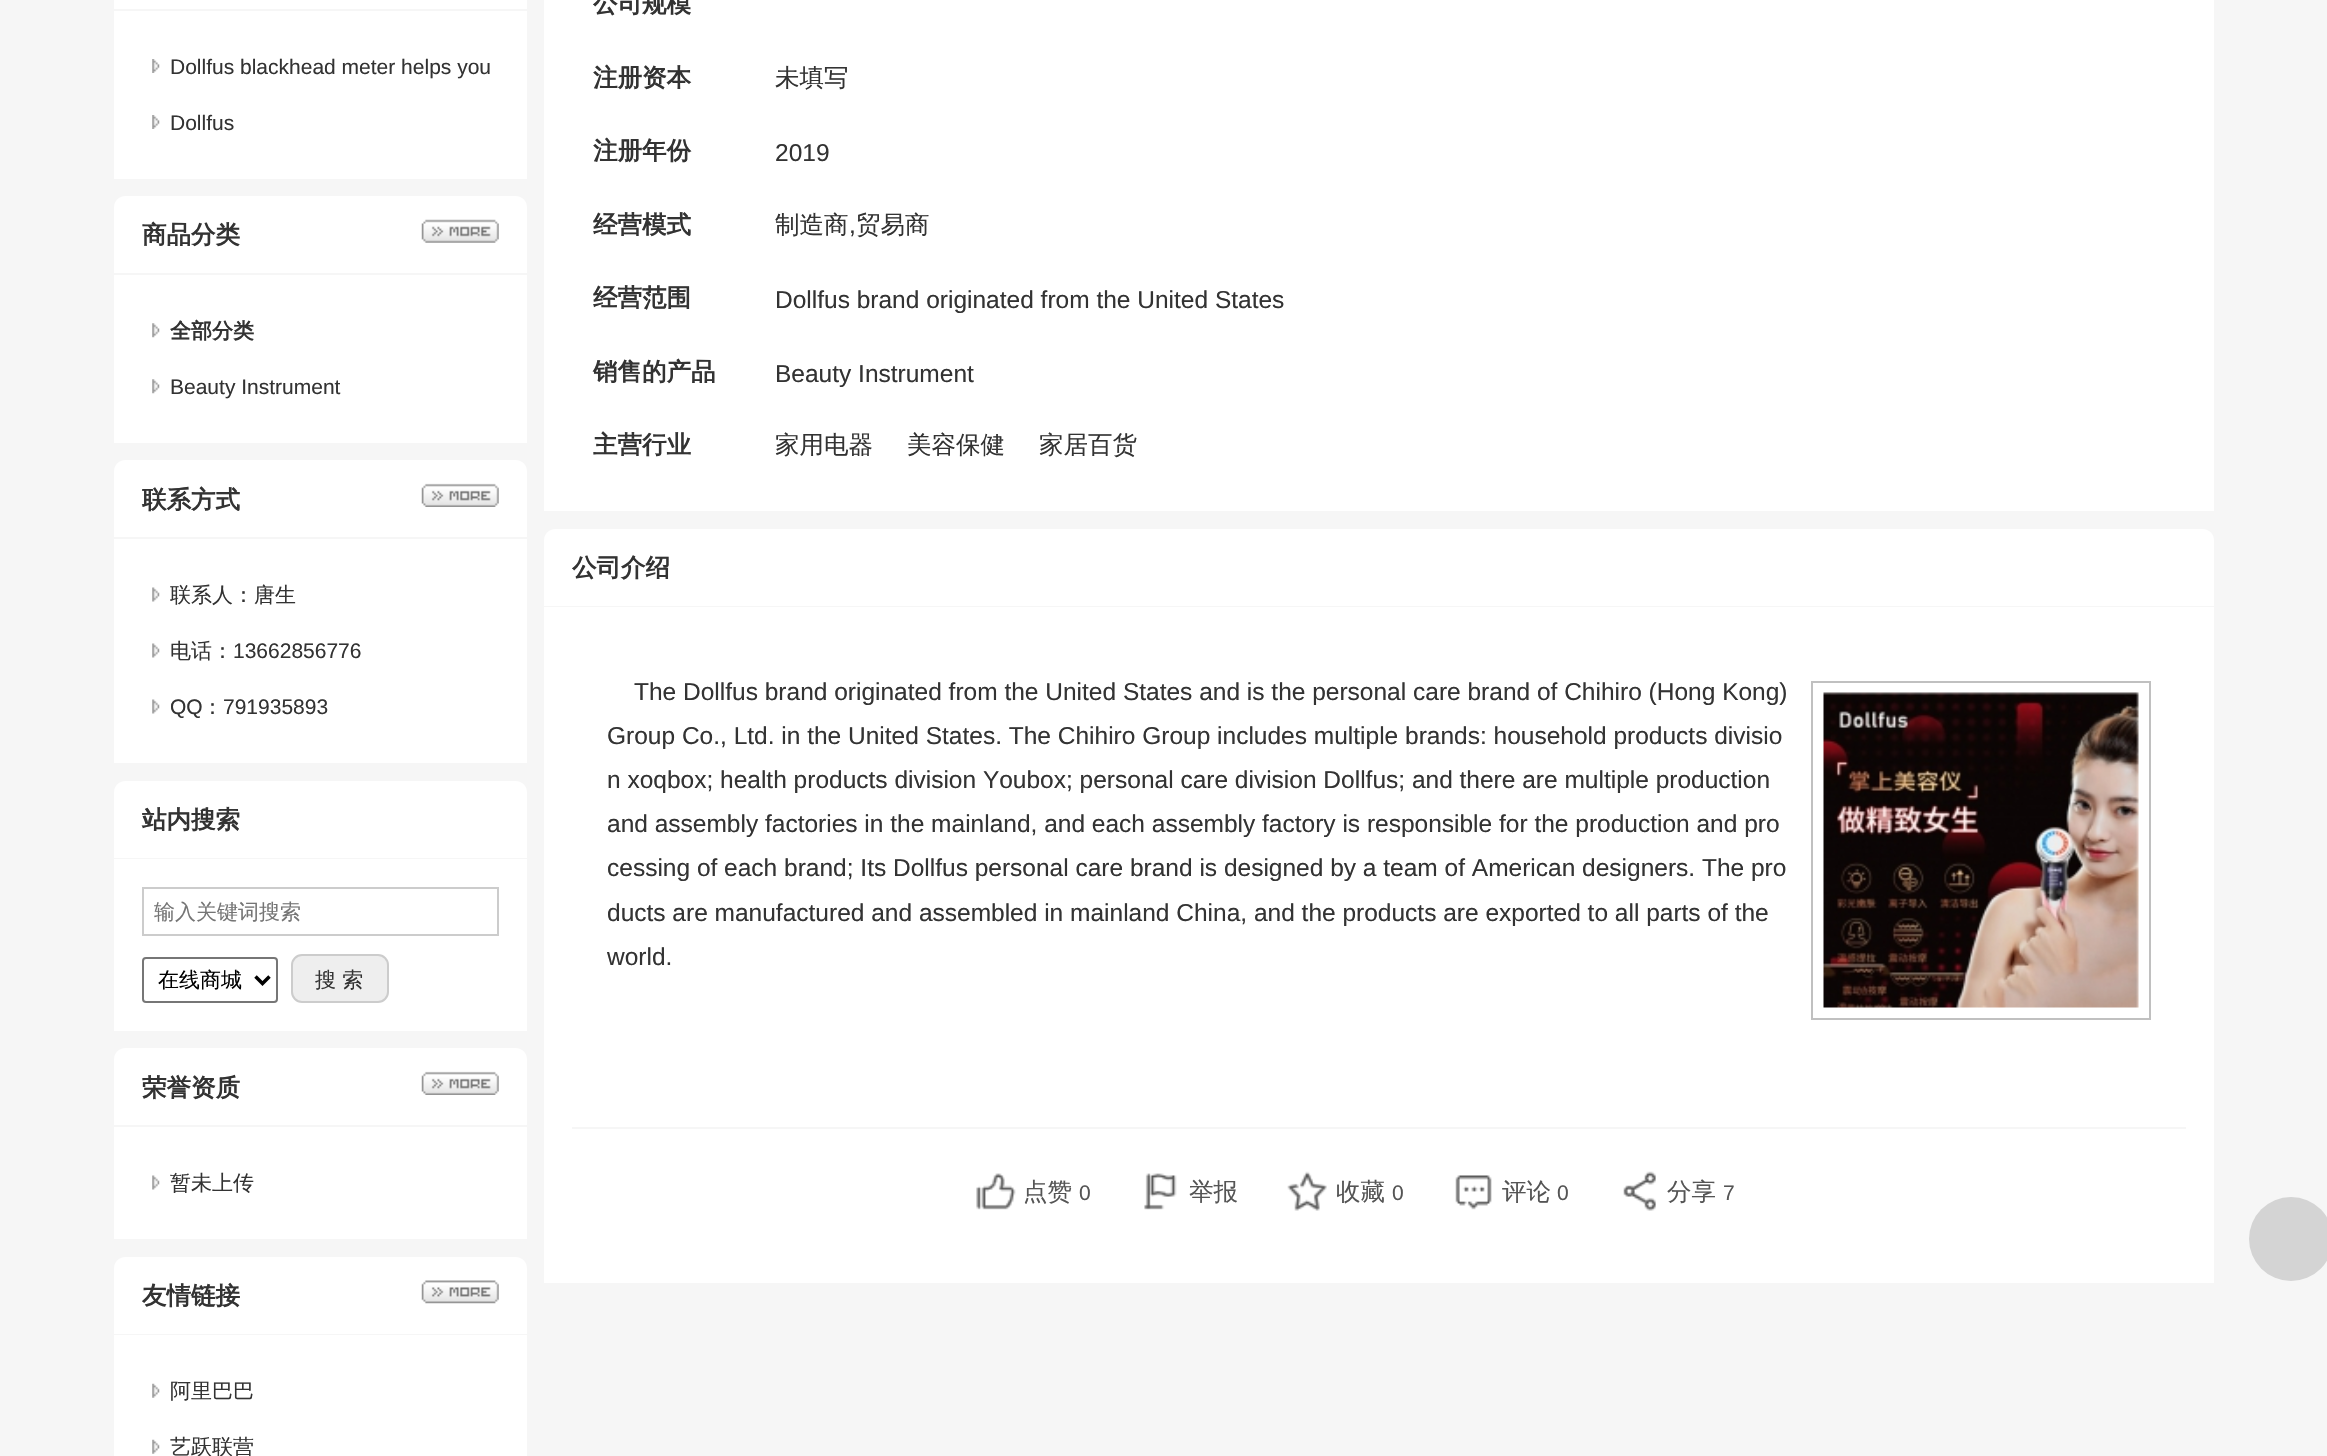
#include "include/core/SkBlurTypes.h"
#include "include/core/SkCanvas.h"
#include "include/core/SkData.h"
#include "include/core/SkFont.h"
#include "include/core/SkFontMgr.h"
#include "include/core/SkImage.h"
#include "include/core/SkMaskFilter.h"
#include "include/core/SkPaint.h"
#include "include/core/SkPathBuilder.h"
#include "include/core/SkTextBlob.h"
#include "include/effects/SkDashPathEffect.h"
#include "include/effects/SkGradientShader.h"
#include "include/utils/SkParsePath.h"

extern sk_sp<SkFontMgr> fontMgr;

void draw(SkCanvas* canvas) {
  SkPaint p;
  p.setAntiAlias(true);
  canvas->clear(SkColorSetRGB(246, 246, 246));
  p.setColor(SK_ColorWHITE);
  canvas->drawRect(SkRect::MakeLTRB(114, 0, 527, 9), p);
  canvas->drawRect(SkRect::MakeLTRB(114, 11, 527, 179), p);
  canvas->drawImageRect(SkImages::DeferredFromEncodedData(SkData::MakeFromFileName("images/1.png")), SkRect::MakeLTRB(152, 59, 160, 73), SkSamplingOptions());
  canvas->drawImageRect(SkImages::DeferredFromEncodedData(SkData::MakeFromFileName("images/1.png")), SkRect::MakeLTRB(152, 115, 160, 129), SkSamplingOptions());
  canvas->drawPath(SkPathBuilder().moveTo(125, 196).lineTo(516, 196).cubicTo(522, 196, 527, 201, 527, 207).lineTo(527, 275).lineTo(114, 275).lineTo(114, 207).cubicTo(114, 201, 119, 196, 125, 196).close().detach(), p);
  p.setColor(SkColorSetRGB(246, 246, 246));
  canvas->drawRect(SkRect::MakeLTRB(114, 273, 527, 275), p);
  canvas->drawImageRect(SkImages::DeferredFromEncodedData(SkData::MakeFromFileName("images/2.png")), SkRect::MakeLTRB(421, 219, 499, 243), SkSamplingOptions());
  p.setColor(SK_ColorWHITE);
  canvas->drawRect(SkRect::MakeLTRB(114, 275, 527, 443), p);
  canvas->drawImageRect(SkImages::DeferredFromEncodedData(SkData::MakeFromFileName("images/3.png")), SkRect::MakeLTRB(152, 323, 160, 338), SkSamplingOptions());
  canvas->drawImageRect(SkImages::DeferredFromEncodedData(SkData::MakeFromFileName("images/3.png")), SkRect::MakeLTRB(152, 379, 160, 394), SkSamplingOptions());
  canvas->drawPath(SkPathBuilder().moveTo(125, 460).lineTo(516, 460).cubicTo(522, 460, 527, 465, 527, 471).lineTo(527, 539).lineTo(114, 539).lineTo(114, 471).cubicTo(114, 465, 119, 460, 125, 460).close().detach(), p);
  p.setColor(SkColorSetRGB(246, 246, 246));
  canvas->drawRect(SkRect::MakeLTRB(114, 537, 527, 539), p);
  canvas->drawImageRect(SkImages::DeferredFromEncodedData(SkData::MakeFromFileName("images/4.png")), SkRect::MakeLTRB(421, 483, 499, 507), SkSamplingOptions());
  p.setColor(SK_ColorWHITE);
  canvas->drawRect(SkRect::MakeLTRB(114, 539, 527, 763), p);
  canvas->drawImageRect(SkImages::DeferredFromEncodedData(SkData::MakeFromFileName("images/5.png")), SkRect::MakeLTRB(152, 587, 160, 602), SkSamplingOptions());
  canvas->drawImageRect(SkImages::DeferredFromEncodedData(SkData::MakeFromFileName("images/5.png")), SkRect::MakeLTRB(152, 643, 160, 658), SkSamplingOptions());
  canvas->drawImageRect(SkImages::DeferredFromEncodedData(SkData::MakeFromFileName("images/5.png")), SkRect::MakeLTRB(152, 699, 160, 714), SkSamplingOptions());
  canvas->drawPath(SkPathBuilder().moveTo(125, 781).lineTo(516, 781).cubicTo(522, 781, 527, 786, 527, 792).lineTo(527, 859).lineTo(114, 859).lineTo(114, 792).cubicTo(114, 786, 119, 781, 125, 781).close().detach(), p);
  p.setColor(SkColorSetRGB(246, 246, 246));
  canvas->drawRect(SkRect::MakeLTRB(114, 858, 527, 859), p);
  p.setColor(SK_ColorWHITE);
  canvas->drawRect(SkRect::MakeLTRB(114, 859, 527, 1031), p);
  p.setStyle(SkPaint::kStroke_Style);
  p.setStrokeWidth(2);
  p.setColor(SkColorSetRGB(204, 204, 204));
  canvas->drawRect(SkRect::MakeLTRB(143, 888, 498, 935), p);
  p.setColor(SkColorSetRGB(118, 118, 118));
  canvas->drawRoundRect(SkRect::MakeLTRB(143, 958, 277, 1002), 3, 3, p);
  p.setStrokeWidth(3.5f);
  p.setColor(SK_ColorBLACK);
  canvas->drawPath(SkPathBuilder().moveTo(255.5f, 976.5f).lineTo(262.5f, 983.5f).lineTo(269.5f, 976.5f).detach(), p);
  p.setStyle(SkPaint::kFill_Style);
  p.setColor(SkColorSetRGB(238, 238, 238));
  canvas->drawRoundRect(SkRect::MakeLTRB(292, 955, 388, 1002), 10, 10, p);
  p.setStyle(SkPaint::kStroke_Style);
  p.setStrokeWidth(2);
  p.setColor(SkColorSetRGB(204, 204, 204));
  canvas->drawRoundRect(SkRect::MakeLTRB(292, 955, 388, 1002), 10, 10, p);
  p.setStyle(SkPaint::kFill_Style);
  p.setColor(SK_ColorWHITE);
  canvas->drawPath(SkPathBuilder().moveTo(125, 1048).lineTo(516, 1048).cubicTo(522, 1048, 527, 1053, 527, 1059).lineTo(527, 1127).lineTo(114, 1127).lineTo(114, 1059).cubicTo(114, 1053, 119, 1048, 125, 1048).close().detach(), p);
  p.setColor(SkColorSetRGB(246, 246, 246));
  canvas->drawRect(SkRect::MakeLTRB(114, 1125, 527, 1127), p);
  canvas->drawImageRect(SkImages::DeferredFromEncodedData(SkData::MakeFromFileName("images/4.png")), SkRect::MakeLTRB(421, 1071, 499, 1095), SkSamplingOptions());
  p.setColor(SK_ColorWHITE);
  canvas->drawRect(SkRect::MakeLTRB(114, 1127, 527, 1239), p);
  canvas->drawImageRect(SkImages::DeferredFromEncodedData(SkData::MakeFromFileName("images/5.png")), SkRect::MakeLTRB(152, 1175, 160, 1190), SkSamplingOptions());
  canvas->drawPath(SkPathBuilder().moveTo(125, 1257).lineTo(516, 1257).cubicTo(522, 1257, 527, 1262, 527, 1268).lineTo(527, 1335).lineTo(114, 1335).lineTo(114, 1268).cubicTo(114, 1262, 119, 1257, 125, 1257).close().detach(), p);
  p.setColor(SkColorSetRGB(246, 246, 246));
  canvas->drawRect(SkRect::MakeLTRB(114, 1334, 527, 1335), p);
  canvas->drawImageRect(SkImages::DeferredFromEncodedData(SkData::MakeFromFileName("images/6.png")), SkRect::MakeLTRB(421, 1280, 499, 1304), SkSamplingOptions());
  p.setColor(SK_ColorWHITE);
  canvas->drawRect(SkRect::MakeLTRB(114, 1335, 527, 1456), p);
  canvas->drawImageRect(SkImages::DeferredFromEncodedData(SkData::MakeFromFileName("images/7.png")), SkRect::MakeLTRB(152, 1383, 160, 1398), SkSamplingOptions());
  canvas->drawImageRect(SkImages::DeferredFromEncodedData(SkData::MakeFromFileName("images/7.png")), SkRect::MakeLTRB(152, 1439, 160, 1454), SkSamplingOptions());
  canvas->drawRect(SkRect::MakeLTRB(544, 0, 2214, 511), p);
  canvas->drawPath(SkPathBuilder().moveTo(555, 529).lineTo(2203, 529).cubicTo(2209, 529, 2214, 534, 2214, 540).lineTo(2214, 607).lineTo(544, 607).lineTo(544, 540).cubicTo(544, 534, 549, 529, 555, 529).close().detach(), p);
  p.setColor(SkColorSetRGB(246, 246, 246));
  canvas->drawRect(SkRect::MakeLTRB(544, 606, 2214, 607), p);
  p.setColor(SK_ColorWHITE);
  canvas->drawRect(SkRect::MakeLTRB(544, 607, 2214, 1283), p);
  p.setStyle(SkPaint::kStroke_Style);
  p.setColor(SkColorSetRGB(192, 192, 192));
  canvas->drawRect(SkRect::MakeLTRB(1812, 682, 2150, 1019), p);
  canvas->drawImageRect(SkImages::DeferredFromEncodedData(SkData::MakeFromFileName("images/8.png")), SkRect::MakeLTRB(1823, 692, 2139, 1008), SkSamplingOptions());
  p.setStyle(SkPaint::kFill_Style);
  p.setColor(SkColorSetRGB(246, 246, 246));
  canvas->drawRect(SkRect::MakeLTRB(572, 1127, 2186, 1129), p);
  canvas->drawImageRect(SkImages::DeferredFromEncodedData(SkData::MakeFromFileName("images/9.png")), SkRect::MakeLTRB(976, 1173, 1016, 1210), SkSamplingOptions());
  canvas->drawImageRect(SkImages::DeferredFromEncodedData(SkData::MakeFromFileName("images/10.png")), SkRect::MakeLTRB(1144, 1173, 1177, 1210), SkSamplingOptions());
  canvas->drawImageRect(SkImages::DeferredFromEncodedData(SkData::MakeFromFileName("images/11.png")), SkRect::MakeLTRB(1287, 1171, 1327, 1211), SkSamplingOptions());
  canvas->drawImageRect(SkImages::DeferredFromEncodedData(SkData::MakeFromFileName("images/12.png")), SkRect::MakeLTRB(1455, 1175, 1492, 1210), SkSamplingOptions());
  canvas->drawImageRect(SkImages::DeferredFromEncodedData(SkData::MakeFromFileName("images/13.png")), SkRect::MakeLTRB(1623, 1171, 1656, 1211), SkSamplingOptions());
  p.setColor(SkColorSetRGB(212, 212, 212));
  canvas->drawCircle(2291, 1239, 42, p);
  SkFont font1(fontMgr->matchFamilyStyle("Liberation Sans", SkFontStyle::Normal()), 21);
  font1.setSubpixel(true);
  p.setColor(SkColorSetRGB(51, 51, 51));
  canvas->drawString("Dollfus blackhead meter helps you", 170, 74, font1, p);
  canvas->drawString("Dollfus", 170, 130, font1, p);
  SkFont font2(fontMgr->matchFamilyStyle("WenQuanYi Zen Hei", SkFontStyle::Bold()), 24.5f);
  font2.setSubpixel(true);
  canvas->drawString("商品分类", 142, 243, font2, p);
  SkFont font3(fontMgr->matchFamilyStyle("WenQuanYi Zen Hei", SkFontStyle::Bold()), 21);
  font3.setSubpixel(true);
  canvas->drawString("全部分类", 170, 338, font3, p);
  canvas->drawString("Beauty Instrument", 170, 394, font1, p);
  canvas->drawString("联系方式", 142, 508, font2, p);
  SkFont font4(fontMgr->matchFamilyStyle("WenQuanYi Zen Hei", SkFontStyle(500, SkFontStyle::kNormal_Width, SkFontStyle::kUpright_Slant)), 21);
  font4.setSubpixel(true);
  canvas->drawString("联系人：唐生", 170, 602, font4, p);
  canvas->drawString("电话：", 170, 658, font4, p);
  canvas->drawString("13662856776", 233, 658, font1, p);
  canvas->drawString("QQ", 170, 714, font1, p);
  canvas->drawString("：", 202, 714, font4, p);
  canvas->drawString("791935893", 223, 714, font1, p);
  canvas->drawString("站内搜索", 142, 828, font2, p);
  p.setColor(SkColorSetRGB(117, 117, 117));
  canvas->drawString("输入关键词搜索", 154, 919, font4, p);
  p.setColor(SK_ColorBLACK);
  canvas->drawString("在线商城", 158, 987, font4, p);
  p.setColor(SkColorSetRGB(51, 51, 51));
  canvas->drawString("搜 索", 315, 987, font4, p);
  canvas->drawString("荣誉资质", 142, 1096, font2, p);
  canvas->drawString("暂未上传", 170, 1190, font4, p);
  canvas->drawString("友情链接", 142, 1304, font2, p);
  canvas->drawString("阿里巴巴", 170, 1398, font4, p);
  canvas->drawString("艺跃联营", 170, 1454, font4, p);
  canvas->drawString("公司规模", 593, 12, font2, p);
  canvas->drawString("注册资本", 593, 86, font2, p);
  SkFont font5(fontMgr->matchFamilyStyle("WenQuanYi Zen Hei", SkFontStyle(500, SkFontStyle::kNormal_Width, SkFontStyle::kUpright_Slant)), 24.5f);
  font5.setSubpixel(true);
  canvas->drawString("未填写", 775, 86, font5, p);
  canvas->drawString("注册年份", 593, 159, font2, p);
  SkFont font6(fontMgr->matchFamilyStyle("Liberation Sans", SkFontStyle::Normal()), 24.5f);
  font6.setSubpixel(true);
  canvas->drawString("2019", 775, 161, font6, p);
  canvas->drawString("经营模式", 593, 233, font2, p);
  canvas->drawString("制造商", 775, 233, font5, p);
  canvas->drawString(",", 849, 233, font6, p);
  canvas->drawString("贸易商", 856, 233, font5, p);
  canvas->drawString("经营范围", 593, 306, font2, p);
  canvas->drawString("Dollfus brand originated from the United States", 775, 308, font6, p);
  canvas->drawString("销售的产品", 593, 380, font2, p);
  canvas->drawString("Beauty Instrument", 775, 382, font6, p);
  canvas->drawString("主营行业", 593, 453, font2, p);
  canvas->drawString("家用电器", 775, 453, font5, p);
  canvas->drawString("美容保健", 907, 453, font5, p);
  canvas->drawString("家居百货", 1039, 453, font5, p);
  canvas->drawString("公司介绍", 572, 576, font2, p);
  canvas->drawString("The Dollfus brand originated from the United States and is the personal care brand of Chihiro (Hong Kong)", 634, 700, font6, p);
  canvas->drawString("Group Co., Ltd. in the United States. The Chihiro Group includes multiple brands: household products divisio", 607, 744, font6, p);
  canvas->drawString("n xoqbox; health products division Youbox; personal care division Dollfus; and there are multiple production", 607, 788, font6, p);
  canvas->drawString("and assembly factories in the mainland, and each assembly factory is responsible for the production and pro", 607, 832, font6, p);
  canvas->drawString("cessing of each brand; Its Dollfus personal care brand is designed by a team of American designers. The pro", 607, 876, font6, p);
  canvas->drawString("ducts are manufactured and assembled in mainland China, and the products are exported to all parts of the", 607, 921, font6, p);
  canvas->drawString("world.", 607, 965, font6, p);
  p.setColor(SkColorSetRGB(85, 85, 85));
  canvas->drawString("点赞", 1023, 1200, font5, p);
  canvas->drawString("0", 1079, 1200, font1, p);
  canvas->drawString("举报", 1189, 1200, font5, p);
  canvas->drawString("收藏", 1336, 1200, font5, p);
  canvas->drawString("0", 1392, 1200, font1, p);
  canvas->drawString("评论", 1502, 1200, font5, p);
  canvas->drawString("0", 1557, 1200, font1, p);
  canvas->drawString("分享", 1667, 1200, font5, p);
  canvas->drawString("7", 1723, 1200, font1, p);
}
